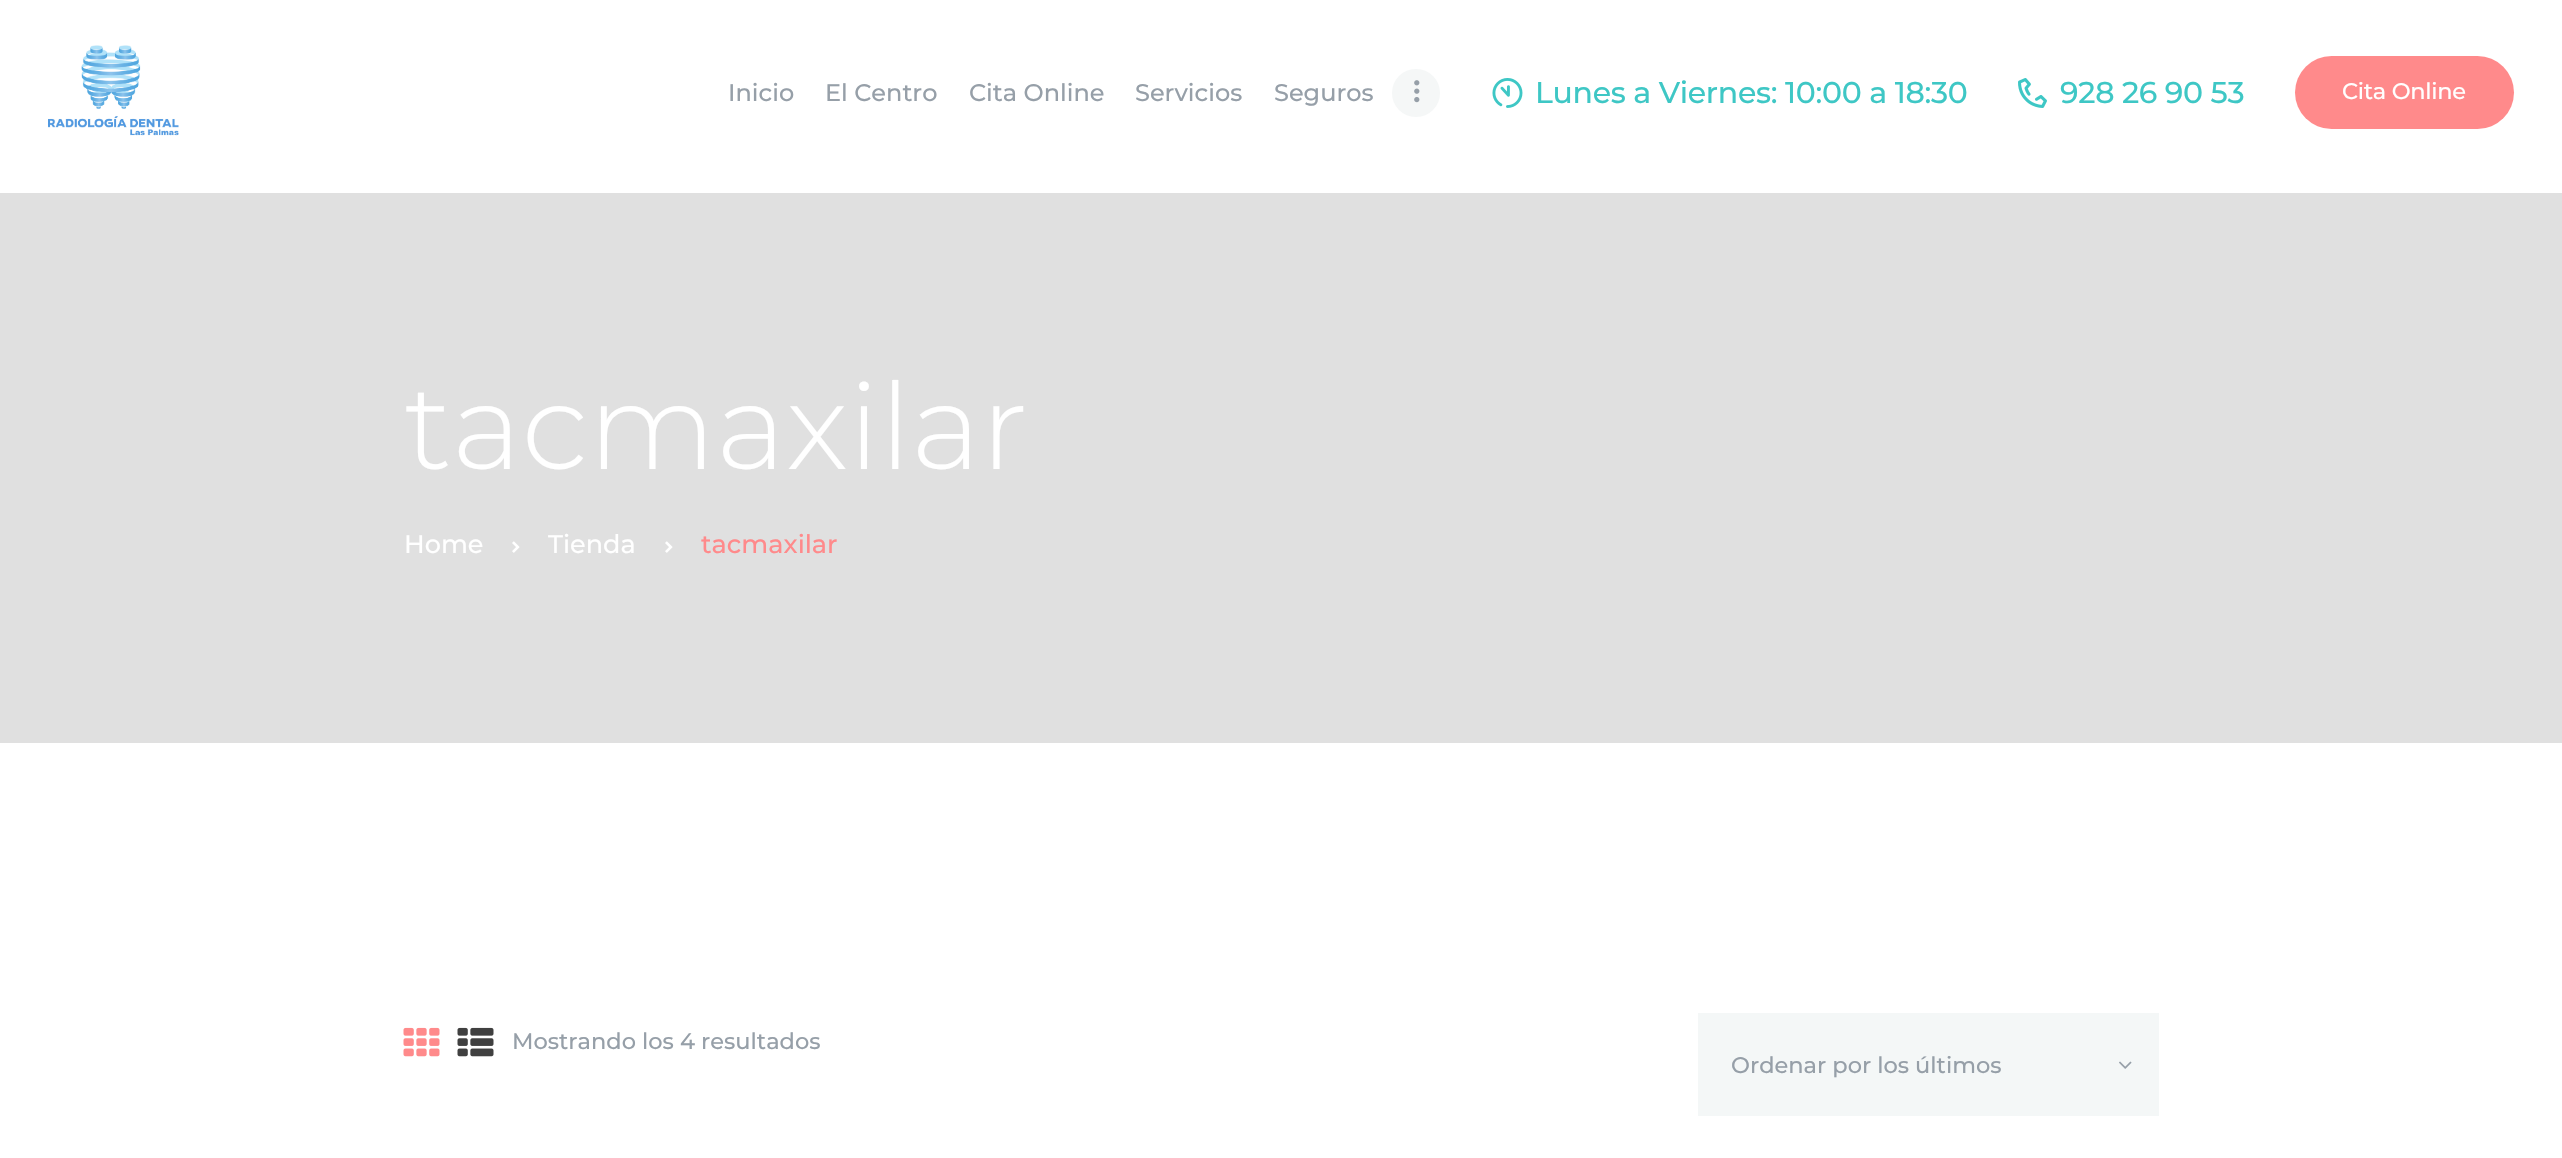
#include "include/core/SkBlurTypes.h"
#include "include/core/SkCanvas.h"
#include "include/core/SkData.h"
#include "include/core/SkFont.h"
#include "include/core/SkFontMgr.h"
#include "include/core/SkImage.h"
#include "include/core/SkMaskFilter.h"
#include "include/core/SkPaint.h"
#include "include/core/SkPathBuilder.h"
#include "include/core/SkTextBlob.h"
#include "include/effects/SkDashPathEffect.h"
#include "include/effects/SkGradientShader.h"
#include "include/utils/SkParsePath.h"

extern sk_sp<SkFontMgr> fontMgr;

void draw(SkCanvas* canvas) {
  SkPaint p;
  p.setAntiAlias(true);
  auto spacedText = [&](const char* s, float x, float y, const SkFont& font, const SkPaint& ink, float letter, float word) {
    std::vector<SkGlyphID> glyphs(font.countText(s, strlen(s), SkTextEncoding::kUTF8));
    std::vector<float> xs(glyphs.size());
    font.textToGlyphs(s, strlen(s), SkTextEncoding::kUTF8, glyphs);
    font.getXPos(glyphs, xs, x);
    float extra = 0;
    for (size_t i = 0; i < glyphs.size(); i++) {
      xs[i] += extra;
      extra += letter + word * (glyphs[i] == font.unicharToGlyph(' '));
    }
    canvas->drawTextBlob(SkTextBlob::MakeFromPosHGlyphs(glyphs, xs, y, font), 0, 0, ink);
  };
  canvas->clear(SK_ColorWHITE);
  canvas->drawImageRect(SkImages::DeferredFromEncodedData(SkData::MakeFromFileName("images/1.png")), SkRect::MakeLTRB(48, 45, 179, 136), SkSamplingOptions());
  p.setColor(SkColorSetRGB(245, 247, 247));
  canvas->drawCircle(1416, 93, 24, p);
  canvas->drawImageRect(SkImages::DeferredFromEncodedData(SkData::MakeFromFileName("images/2.png")), SkRect::MakeLTRB(1414, 80, 1420, 103), SkSamplingOptions());
  canvas->drawImageRect(SkImages::DeferredFromEncodedData(SkData::MakeFromFileName("images/3.png")), SkRect::MakeLTRB(1492, 78, 1523, 108), SkSamplingOptions());
  canvas->drawImageRect(SkImages::DeferredFromEncodedData(SkData::MakeFromFileName("images/4.png")), SkRect::MakeLTRB(2018, 78, 2047, 108), SkSamplingOptions());
  p.setColor(SkColorSetRGB(255, 138, 139));
  canvas->drawRoundRect(SkRect::MakeLTRB(2295, 56, 2514, 129), 36.5f, 36.5f, p);
  p.setColor(SkColorSetRGB(224, 224, 224));
  canvas->drawRect(SkRect::MakeLTRB(0, 193, 2562, 743), p);
  canvas->drawImageRect(SkImages::DeferredFromEncodedData(SkData::MakeFromFileName("images/5.png")), SkRect::MakeLTRB(512, 541, 520, 553), SkSamplingOptions());
  canvas->drawImageRect(SkImages::DeferredFromEncodedData(SkData::MakeFromFileName("images/5.png")), SkRect::MakeLTRB(665, 541, 673, 553), SkSamplingOptions());
  canvas->drawImageRect(SkImages::DeferredFromEncodedData(SkData::MakeFromFileName("images/6.png")), SkRect::MakeLTRB(403, 1027, 440, 1057), SkSamplingOptions());
  canvas->drawImageRect(SkImages::DeferredFromEncodedData(SkData::MakeFromFileName("images/7.png")), SkRect::MakeLTRB(457, 1027, 494, 1057), SkSamplingOptions());
  p.setColor(SkColorSetRGB(244, 247, 247));
  canvas->drawRect(SkRect::MakeLTRB(1698, 1013, 2159, 1116), p);
  canvas->drawImageRect(SkImages::DeferredFromEncodedData(SkData::MakeFromFileName("images/8.png")), SkRect::MakeLTRB(2119, 1061, 2132, 1069), SkSamplingOptions());
  SkFont font1(fontMgr->matchFamilyStyle("Montserrat", SkFontStyle(500, SkFontStyle::kNormal_Width, SkFontStyle::kUpright_Slant)), 24);
  font1.setSubpixel(true);
  p.setColor(SkColorSetRGB(150, 159, 168));
  canvas->drawString("Inicio", 728, 101, font1, p);
  canvas->drawString("El Centro", 825, 101, font1, p);
  canvas->drawString("Cita Online", 969, 101, font1, p);
  canvas->drawString("Servicios", 1135, 101, font1, p);
  canvas->drawString("Seguros", 1274, 101, font1, p);
  SkFont font2(fontMgr->matchFamilyStyle("Montserrat", SkFontStyle(500, SkFontStyle::kNormal_Width, SkFontStyle::kUpright_Slant)), 30);
  font2.setSubpixel(true);
  p.setColor(SkColorSetRGB(62, 199, 197));
  spacedText("Lunes a Viernes: 10:00 a 18:30", 1535, 103, font2, p, -0.3f, 0);
  spacedText("928 26 90 53", 2060, 103, font2, p, -0.3f, 0);
  SkFont font3(fontMgr->matchFamilyStyle("Montserrat", SkFontStyle(500, SkFontStyle::kNormal_Width, SkFontStyle::kUpright_Slant)), 22.5f);
  font3.setSubpixel(true);
  p.setColor(SK_ColorWHITE);
  spacedText("Cita Online", 2342, 99, font3, p, -0.3f, 0);
  SkFont font4(fontMgr->matchFamilyStyle("Montserrat", SkFontStyle(300, SkFontStyle::kNormal_Width, SkFontStyle::kUpright_Slant)), 120);
  font4.setSubpixel(true);
  canvas->drawString("tacmaxilar", 404, 469, font4, p);
  SkFont font5(fontMgr->matchFamilyStyle("Montserrat", SkFontStyle(500, SkFontStyle::kNormal_Width, SkFontStyle::kUpright_Slant)), 25.5f);
  font5.setSubpixel(true);
  canvas->drawString("Home", 404, 553, font5, p);
  canvas->drawString("Tienda", 548, 553, font5, p);
  p.setColor(SkColorSetRGB(255, 138, 139));
  canvas->drawString("tacmaxilar", 701, 553, font5, p);
  p.setColor(SkColorSetRGB(150, 159, 168));
  canvas->drawString("Mostrando los 4 resultados", 512, 1049, font3, p);
  canvas->drawString("Ordenar por los últimos", 1731, 1073, font3, p);
}
